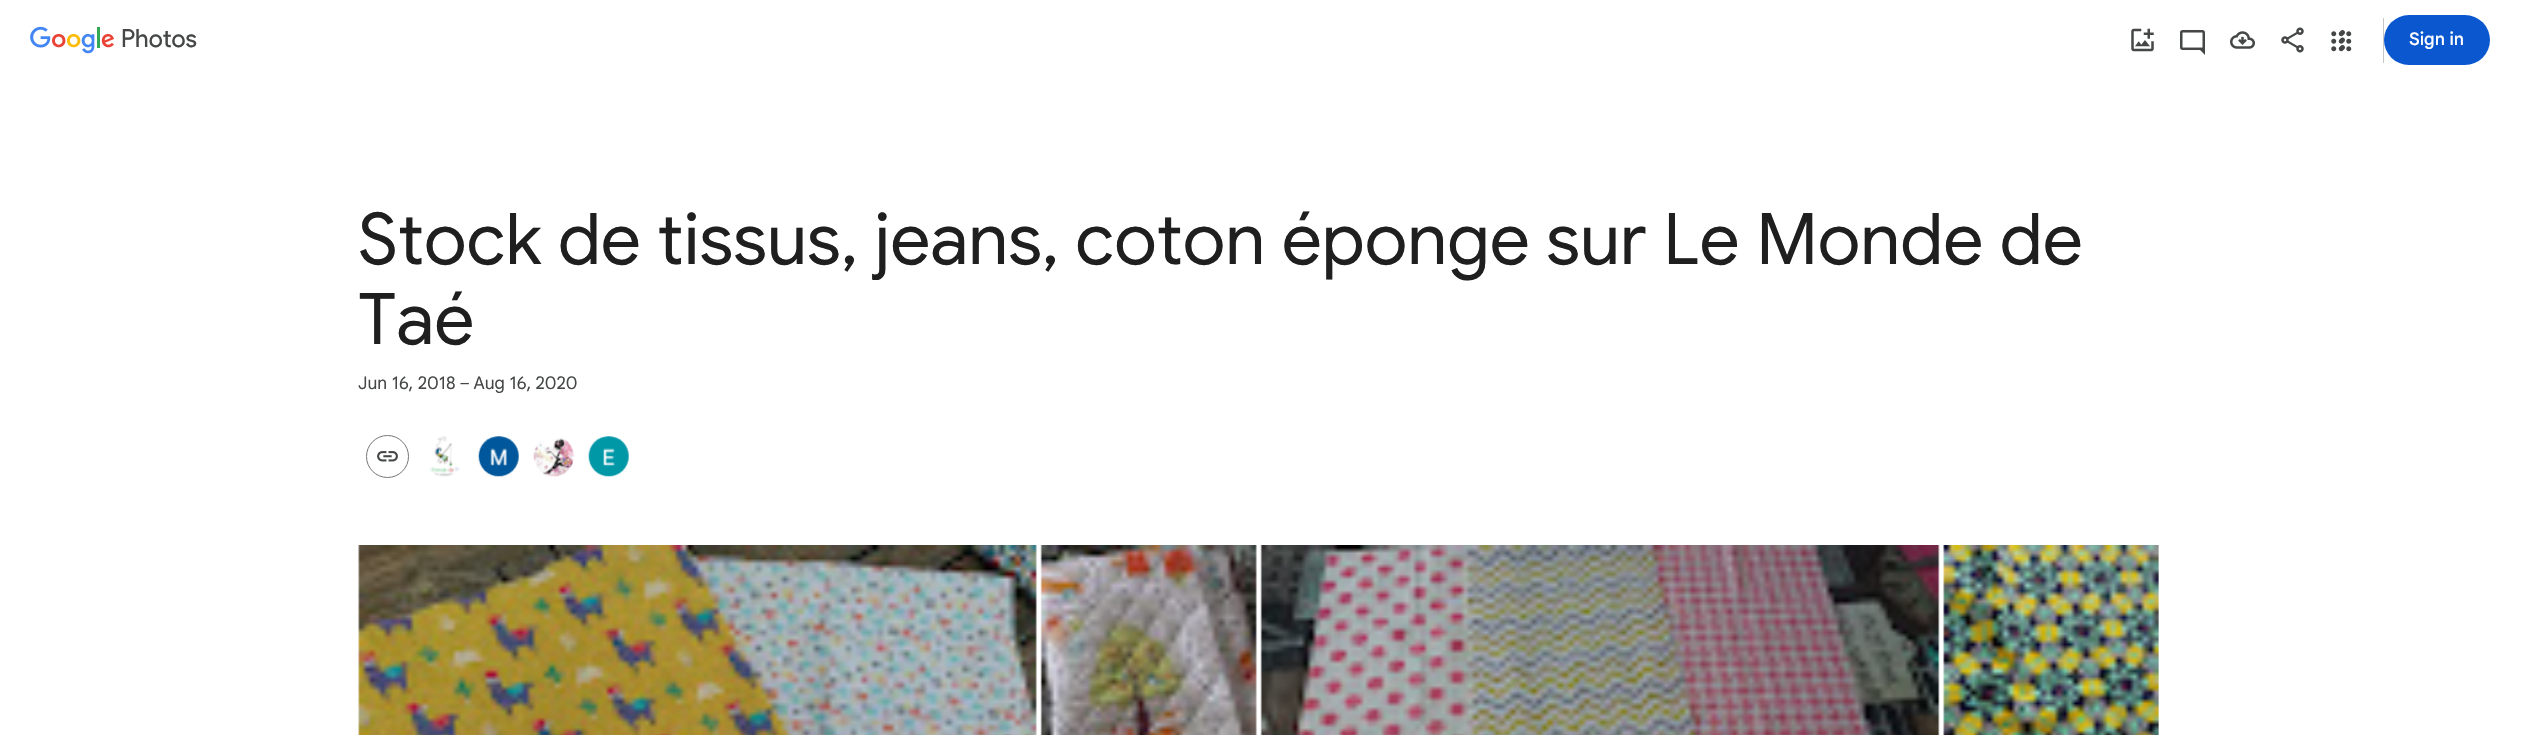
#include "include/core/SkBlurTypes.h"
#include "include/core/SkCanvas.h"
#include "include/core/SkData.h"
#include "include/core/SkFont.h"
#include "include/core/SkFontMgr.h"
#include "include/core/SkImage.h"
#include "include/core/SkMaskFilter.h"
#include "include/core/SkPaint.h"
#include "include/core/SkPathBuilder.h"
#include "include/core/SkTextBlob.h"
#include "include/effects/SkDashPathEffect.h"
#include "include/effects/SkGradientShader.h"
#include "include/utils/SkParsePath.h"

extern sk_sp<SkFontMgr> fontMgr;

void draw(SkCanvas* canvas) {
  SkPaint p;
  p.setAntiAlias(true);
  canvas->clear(SK_ColorWHITE);
  canvas->drawImageRect(SkImages::DeferredFromEncodedData(SkData::MakeFromFileName("images/1.png")), SkRect::MakeLTRB(30, 26, 114, 54), SkSamplingOptions());
  canvas->drawImageRect(SkImages::DeferredFromEncodedData(SkData::MakeFromFileName("images/2.png")), SkRect::MakeLTRB(2131, 28, 2154, 52), SkSamplingOptions());
  canvas->drawImageRect(SkImages::DeferredFromEncodedData(SkData::MakeFromFileName("images/3.png")), SkRect::MakeLTRB(2180, 30, 2205, 55), SkSamplingOptions());
  canvas->drawImageRect(SkImages::DeferredFromEncodedData(SkData::MakeFromFileName("images/4.png")), SkRect::MakeLTRB(2230, 31, 2255, 49), SkSamplingOptions());
  canvas->drawImageRect(SkImages::DeferredFromEncodedData(SkData::MakeFromFileName("images/5.png")), SkRect::MakeLTRB(2281, 27, 2304, 53), SkSamplingOptions());
  canvas->drawImageRect(SkImages::DeferredFromEncodedData(SkData::MakeFromFileName("images/6.png")), SkRect::MakeLTRB(2340, 30, 2345, 50), SkSamplingOptions());
  p.setColor(SkColorSetRGB(196, 199, 197));
  canvas->drawRect(SkRect::MakeLTRB(2383, 18, 2384, 63), p);
  p.setStyle(SkPaint::kStroke_Style);
  p.setStrokeWidth(1);
  p.setColor(SkColorSetRGB(116, 119, 117));
  canvas->drawCircle(387.5f, 456.5f, 21, p);
  canvas->drawImageRect(SkImages::DeferredFromEncodedData(SkData::MakeFromFileName("images/7.png")), SkRect::MakeLTRB(377, 451, 398, 462), SkSamplingOptions());
  canvas->drawImageRect(SkImages::DeferredFromEncodedData(SkData::MakeFromFileName("images/8.png")), SkRect::MakeLTRB(428, 436, 460, 477), SkSamplingOptions());
  canvas->drawImageRect(SkImages::DeferredFromEncodedData(SkData::MakeFromFileName("images/9.png")), SkRect::MakeLTRB(478, 436, 519, 477), SkSamplingOptions());
  canvas->drawImageRect(SkImages::DeferredFromEncodedData(SkData::MakeFromFileName("images/10.png")), SkRect::MakeLTRB(533, 438, 574, 477), SkSamplingOptions());
  canvas->drawImageRect(SkImages::DeferredFromEncodedData(SkData::MakeFromFileName("images/11.png")), SkRect::MakeLTRB(588, 436, 629, 477), SkSamplingOptions());
  canvas->drawImageRect(SkImages::DeferredFromEncodedData(SkData::MakeFromFileName("images/12.png")), SkRect::MakeLTRB(358, 545, 1037, 735), SkSamplingOptions());
  canvas->drawImageRect(SkImages::DeferredFromEncodedData(SkData::MakeFromFileName("images/13.png")), SkRect::MakeLTRB(1040, 545, 1257, 735), SkSamplingOptions());
  canvas->drawImageRect(SkImages::DeferredFromEncodedData(SkData::MakeFromFileName("images/14.png")), SkRect::MakeLTRB(1260, 545, 1940, 735), SkSamplingOptions());
  canvas->drawImageRect(SkImages::DeferredFromEncodedData(SkData::MakeFromFileName("images/15.png")), SkRect::MakeLTRB(1943, 545, 2159, 735), SkSamplingOptions());
  canvas->drawImageRect(SkImages::DeferredFromEncodedData(SkData::MakeFromFileName("images/16.png")), SkRect::MakeLTRB(2331, 31, 2352, 52), SkSamplingOptions());
  p.setStyle(SkPaint::kFill_Style);
  p.setColor(SkColorSetRGB(11, 87, 208));
  canvas->drawRoundRect(SkRect::MakeLTRB(2384, 15, 2490, 65), 25, 25, p);
  SkFont font1(fontMgr->matchFamilyStyle("Product Sans", SkFontStyle::Normal()), 25);
  font1.setSubpixel(true);
  p.setColor(SkColorSetRGB(68, 71, 70));
  canvas->drawString("Photos", 121, 47, font1, p);
  SkFont font2(fontMgr->matchFamilyStyle("Google Sans", SkFontStyle::Normal()), 71.25f);
  font2.setSubpixel(true);
  p.setColor(SkColorSetRGB(31, 31, 31));
  canvas->drawString("Stock de tissus, jeans, coton éponge sur Le Monde de", 358, 264, font2, p);
  canvas->drawString("Taé", 358, 344, font2, p);
  SkFont font3(fontMgr->matchFamilyStyle("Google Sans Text", SkFontStyle::Normal()), 17.5f);
  font3.setSubpixel(true);
  p.setColor(SkColorSetRGB(68, 71, 70));
  canvas->drawString("Jun 16, 2018 – Aug 16, 2020", 358, 389, font3, p);
  SkFont font4(fontMgr->matchFamilyStyle("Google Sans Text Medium", SkFontStyle(500, SkFontStyle::kNormal_Width, SkFontStyle::kUpright_Slant)), 17.5f);
  font4.setSubpixel(true);
  p.setColor(SK_ColorWHITE);
  canvas->drawString("Sign in", 2409, 45, font4, p);
}
